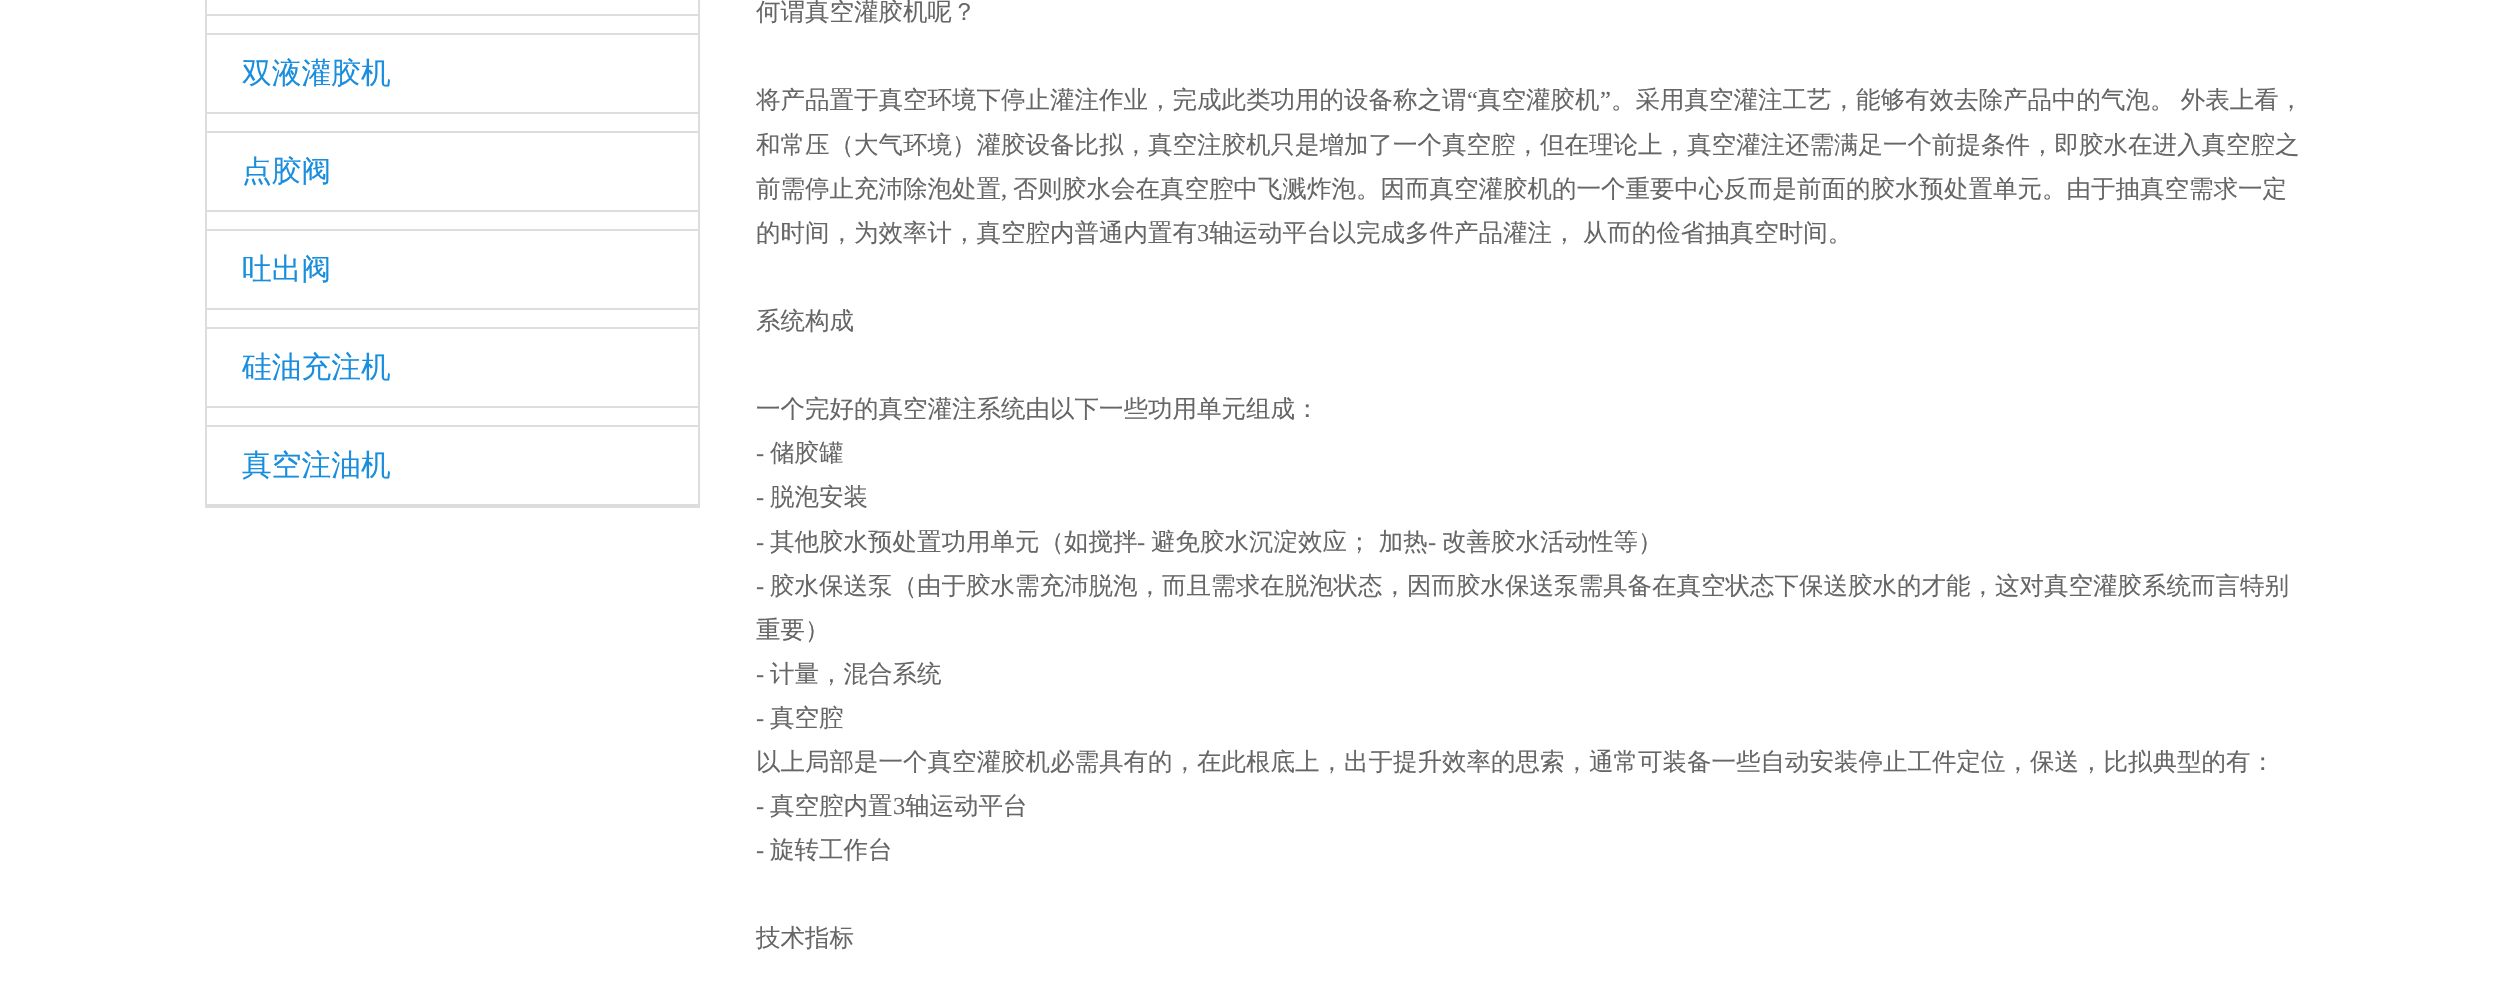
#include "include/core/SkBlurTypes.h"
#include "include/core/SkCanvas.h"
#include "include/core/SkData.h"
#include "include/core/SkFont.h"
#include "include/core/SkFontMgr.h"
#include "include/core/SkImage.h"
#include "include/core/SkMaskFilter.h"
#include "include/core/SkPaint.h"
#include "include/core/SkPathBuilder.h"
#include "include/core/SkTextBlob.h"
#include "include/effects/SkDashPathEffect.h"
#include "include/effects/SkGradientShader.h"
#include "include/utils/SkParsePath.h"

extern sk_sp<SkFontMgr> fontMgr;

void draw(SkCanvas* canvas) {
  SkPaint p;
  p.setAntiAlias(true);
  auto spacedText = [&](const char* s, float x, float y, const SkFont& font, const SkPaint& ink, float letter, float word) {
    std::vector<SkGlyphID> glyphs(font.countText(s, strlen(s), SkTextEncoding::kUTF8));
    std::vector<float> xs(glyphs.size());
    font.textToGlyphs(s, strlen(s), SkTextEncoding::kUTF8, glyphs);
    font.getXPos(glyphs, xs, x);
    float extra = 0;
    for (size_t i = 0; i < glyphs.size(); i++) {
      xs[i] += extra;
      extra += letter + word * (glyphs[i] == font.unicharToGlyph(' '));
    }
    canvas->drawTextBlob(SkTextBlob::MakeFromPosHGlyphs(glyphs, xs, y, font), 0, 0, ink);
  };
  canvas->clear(SK_ColorWHITE);
  p.setColor(SkColorSetRGB(221, 221, 221));
  canvas->drawRect(SkRect::MakeLTRB(698, 0, 700, 508), p);
  canvas->drawRect(SkRect::MakeLTRB(205, 506, 700, 508), p);
  canvas->drawRect(SkRect::MakeLTRB(205, 0, 207, 508), p);
  canvas->drawRect(SkRect::MakeLTRB(207, 14, 698, 16), p);
  canvas->drawRect(SkRect::MakeLTRB(207, 33, 698, 35), p);
  canvas->drawRect(SkRect::MakeLTRB(207, 112, 698, 114), p);
  canvas->drawRect(SkRect::MakeLTRB(207, 131, 698, 133), p);
  canvas->drawRect(SkRect::MakeLTRB(207, 210, 698, 212), p);
  canvas->drawRect(SkRect::MakeLTRB(207, 229, 698, 231), p);
  canvas->drawRect(SkRect::MakeLTRB(207, 308, 698, 310), p);
  canvas->drawRect(SkRect::MakeLTRB(207, 327, 698, 329), p);
  canvas->drawRect(SkRect::MakeLTRB(207, 406, 698, 408), p);
  canvas->drawRect(SkRect::MakeLTRB(207, 425, 698, 427), p);
  canvas->drawRect(SkRect::MakeLTRB(207, 504, 698, 506), p);
  SkFont font1(fontMgr->matchFamilyStyle("WenQuanYi Zen Hei", SkFontStyle(500, SkFontStyle::kNormal_Width, SkFontStyle::kUpright_Slant)), 29.75f);
  font1.setSubpixel(true);
  p.setColor(SkColorSetRGB(25, 142, 222));
  canvas->drawString("双液灌胶机", 242, 83, font1, p);
  canvas->drawString("点胶阀", 242, 181, font1, p);
  canvas->drawString("吐出阀", 242, 279, font1, p);
  canvas->drawString("硅油充注机", 242, 377, font1, p);
  canvas->drawString("真空注油机", 242, 475, font1, p);
  SkFont font2(fontMgr->matchFamilyStyle("WenQuanYi Zen Hei", SkFontStyle(500, SkFontStyle::kNormal_Width, SkFontStyle::kUpright_Slant)), 24.5f);
  font2.setSubpixel(true);
  p.setColor(SkColorSetRGB(102, 102, 102));
  canvas->drawString("何谓真空灌胶机呢？", 756, 20, font2, p);
  canvas->drawString("将产品置于真空环境下停止灌注作业，完成此类功用的设备称之谓", 756, 108, font2, p);
  SkFont font3(fontMgr->matchFamilyStyle("Liberation Serif", SkFontStyle::Normal()), 24.5f);
  font3.setSubpixel(true);
  canvas->drawString("“", 1467, 108, font3, p);
  canvas->drawString("真空灌胶机", 1477, 108, font2, p);
  canvas->drawString("”", 1600, 108, font3, p);
  spacedText("。采用真空灌注工艺，能够有效去除产品中的气泡。 外表上看，", 1611, 108, font2, p, 0, -1);
  canvas->drawString("和常压（大气环境）灌胶设备比拟，真空注胶机只是增加了一个真空腔，但在理论上，真空灌注还需满足一个前提条件，即胶水在进入真空腔之", 756, 153, font2, p);
  canvas->drawString("前需停止充沛除泡处置", 756, 197, font2, p);
  canvas->drawString(",", 1001, 197, font3, p);
  canvas->drawString("否则胶水会在真空腔中飞溅炸泡。因而真空灌胶机的一个重要中心反而是前面的胶水预处置单元。由于抽真空需求一定", 1013, 197, font2, p);
  canvas->drawString("的时间，为效率计，真空腔内普通内置有", 756, 241, font2, p);
  canvas->drawString("3", 1197, 241, font3, p);
  spacedText("轴运动平台以完成多件产品灌注， 从而的俭省抽真空时间。", 1209, 241, font2, p, 0, -1);
  canvas->drawString("系统构成", 756, 329, font2, p);
  canvas->drawString("一个完好的真空灌注系统由以下一些功用单元组成：", 756, 417, font2, p);
  canvas->drawString("-", 756, 461, font3, p);
  canvas->drawString("储胶罐", 770, 461, font2, p);
  canvas->drawString("-", 756, 505, font3, p);
  canvas->drawString("脱泡安装", 770, 505, font2, p);
  canvas->drawString("-", 756, 550, font3, p);
  canvas->drawString("其他胶水预处置功用单元（如搅拌", 770, 550, font2, p);
  canvas->drawString("-", 1137, 550, font3, p);
  canvas->drawString("避免胶水沉淀效应； 加热", 1151, 550, font2, p);
  canvas->drawString("-", 1428, 550, font3, p);
  canvas->drawString("改善胶水活动性等）", 1442, 550, font2, p);
  canvas->drawString("-", 756, 594, font3, p);
  canvas->drawString("胶水保送泵（由于胶水需充沛脱泡，而且需求在脱泡状态，因而胶水保送泵需具备在真空状态下保送胶水的才能，这对真空灌胶系统而言特别", 770, 594, font2, p);
  canvas->drawString("重要）", 756, 638, font2, p);
  canvas->drawString("-", 756, 682, font3, p);
  canvas->drawString("计量，混合系统", 770, 682, font2, p);
  canvas->drawString("-", 756, 726, font3, p);
  canvas->drawString("真空腔", 770, 726, font2, p);
  canvas->drawString("以上局部是一个真空灌胶机必需具有的，在此根底上，出于提升效率的思索，通常可装备一些自动安装停止工件定位，保送，比拟典型的有：", 756, 770, font2, p);
  canvas->drawString("-", 756, 814, font3, p);
  canvas->drawString("真空腔内置", 770, 814, font2, p);
  canvas->drawString("3", 893, 814, font3, p);
  canvas->drawString("轴运动平台", 905, 814, font2, p);
  canvas->drawString("-", 756, 858, font3, p);
  canvas->drawString("旋转工作台", 770, 858, font2, p);
  canvas->drawString("技术指标", 756, 946, font2, p);
}
